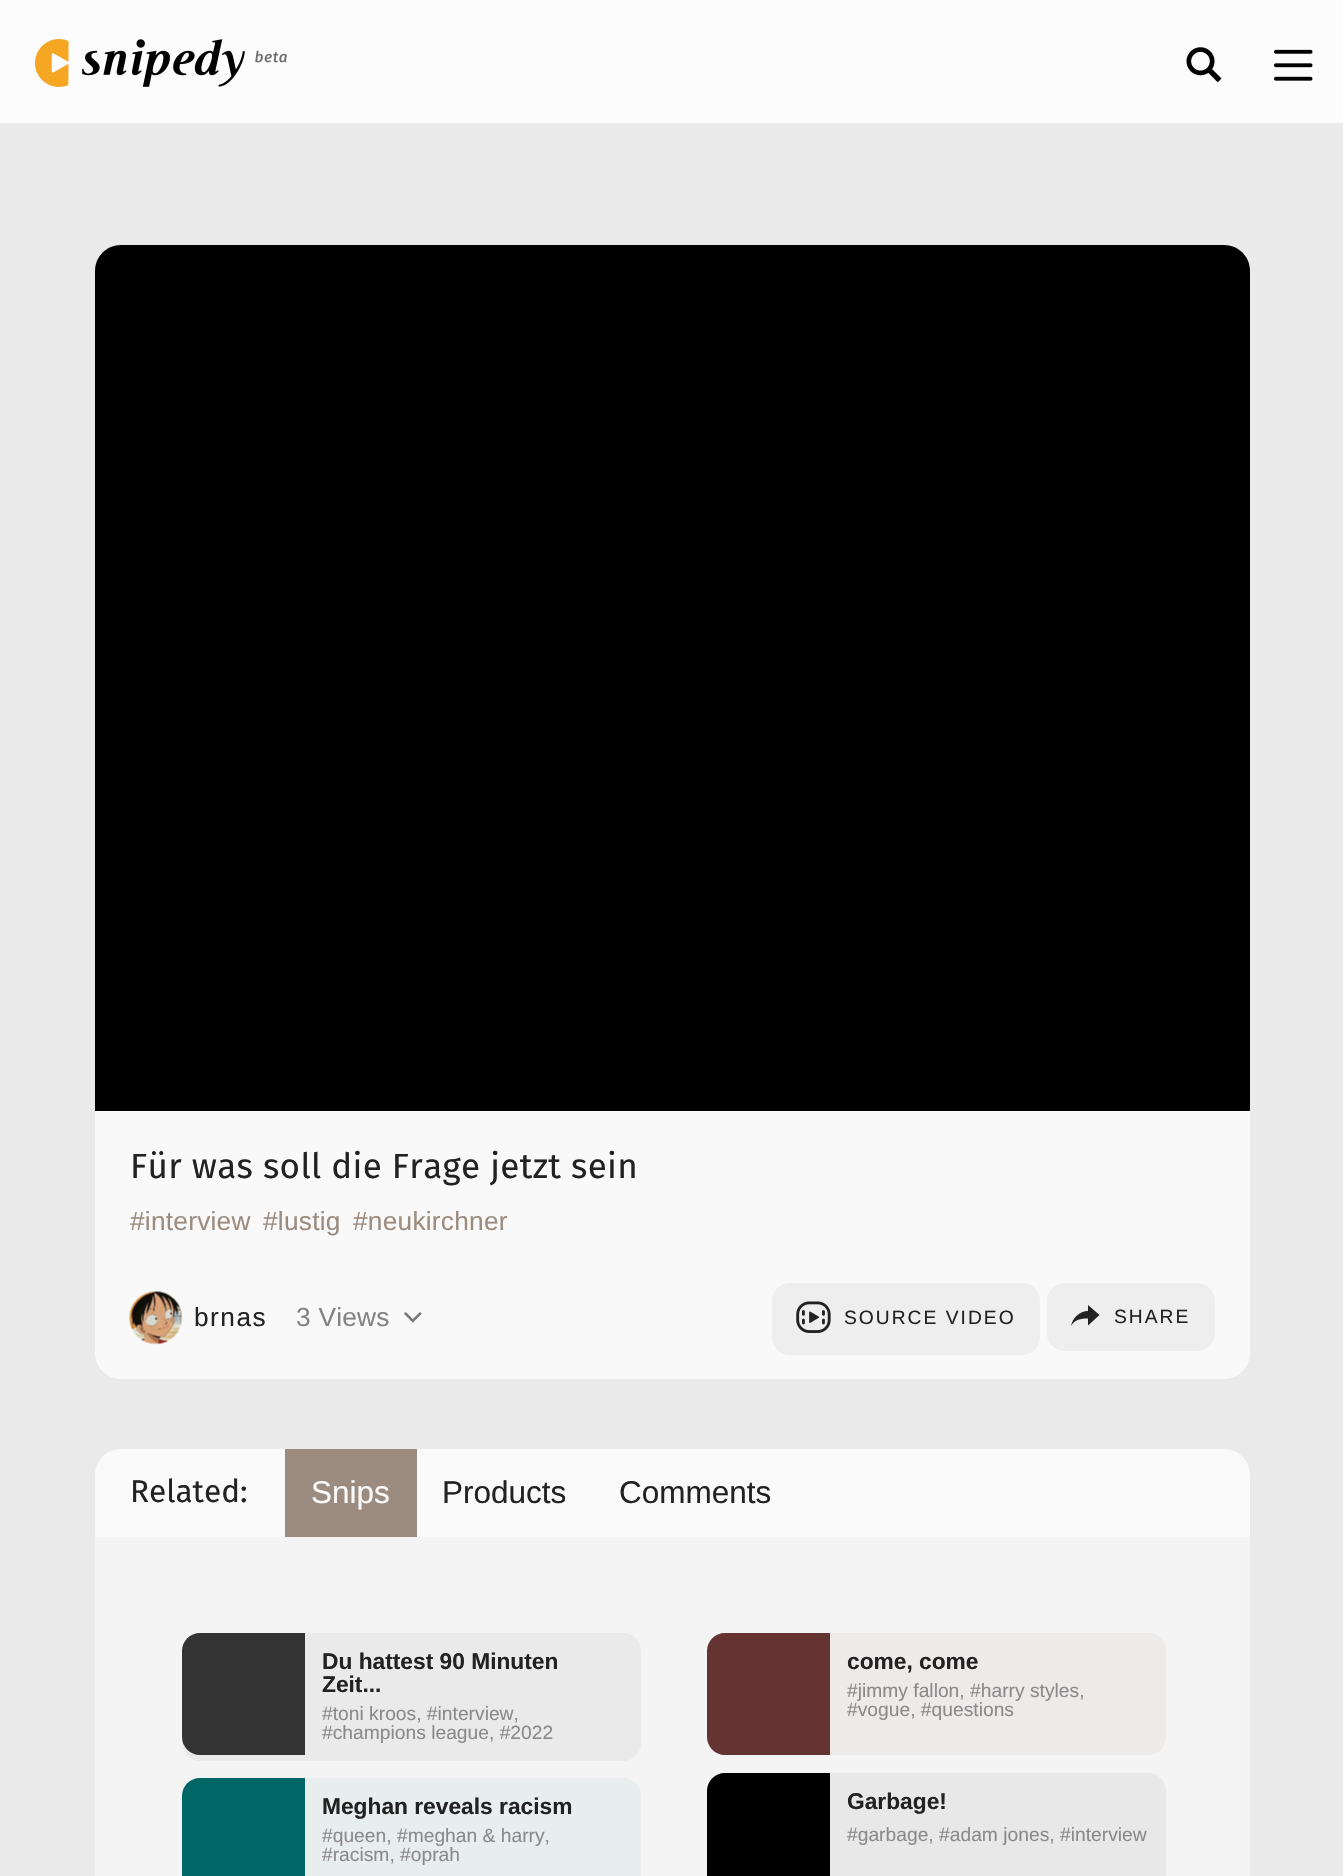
#include "include/core/SkBlurTypes.h"
#include "include/core/SkCanvas.h"
#include "include/core/SkData.h"
#include "include/core/SkFont.h"
#include "include/core/SkFontMgr.h"
#include "include/core/SkImage.h"
#include "include/core/SkMaskFilter.h"
#include "include/core/SkPaint.h"
#include "include/core/SkPathBuilder.h"
#include "include/core/SkTextBlob.h"
#include "include/effects/SkDashPathEffect.h"
#include "include/effects/SkGradientShader.h"
#include "include/utils/SkParsePath.h"

extern sk_sp<SkFontMgr> fontMgr;

void draw(SkCanvas* canvas) {
  SkPaint p;
  p.setAntiAlias(true);
  auto spacedText = [&](const char* s, float x, float y, const SkFont& font, const SkPaint& ink, float letter, float word) {
    std::vector<SkGlyphID> glyphs(font.countText(s, strlen(s), SkTextEncoding::kUTF8));
    std::vector<float> xs(glyphs.size());
    font.textToGlyphs(s, strlen(s), SkTextEncoding::kUTF8, glyphs);
    font.getXPos(glyphs, xs, x);
    float extra = 0;
    for (size_t i = 0; i < glyphs.size(); i++) {
      xs[i] += extra;
      extra += letter + word * (glyphs[i] == font.unicharToGlyph(' '));
    }
    canvas->drawTextBlob(SkTextBlob::MakeFromPosHGlyphs(glyphs, xs, y, font), 0, 0, ink);
  };
  canvas->clear(SkColorSetRGB(234, 234, 234));
  p.setColor(SkColorSetRGB(252, 252, 252));
  canvas->drawRect(SkRect::MakeLTRB(0, 0, 1343, 123), p);
  canvas->drawImageRect(SkImages::DeferredFromEncodedData(SkData::MakeFromFileName("images/1.png")), SkRect::MakeLTRB(35, 39, 287, 87), SkSamplingOptions());
  canvas->drawImageRect(SkImages::DeferredFromEncodedData(SkData::MakeFromFileName("images/2.png")), SkRect::MakeLTRB(1186, 47, 1222, 83), SkSamplingOptions());
  canvas->drawImageRect(SkImages::DeferredFromEncodedData(SkData::MakeFromFileName("images/3.png")), SkRect::MakeLTRB(1274, 49, 1313, 81), SkSamplingOptions());
  p.setColor(SK_ColorBLACK);
  canvas->drawPath(SkPathBuilder().moveTo(121, 245).lineTo(1224, 245).cubicTo(1238.5f, 245, 1250, 256.5f, 1250, 271).lineTo(1250, 1111).lineTo(95, 1111).lineTo(95, 271).cubicTo(95, 256.5f, 106.5f, 245, 121, 245).close().detach(), p);
  p.setColor(SkColorSetRGB(249, 249, 249));
  canvas->drawPath(SkPathBuilder().moveTo(95, 1111).lineTo(1250, 1111).lineTo(1250, 1353).cubicTo(1250, 1367.5f, 1238.5f, 1379, 1224, 1379).lineTo(121, 1379).cubicTo(106.5f, 1379, 95, 1367.5f, 95, 1353).close().detach(), p);
  canvas->drawImageRect(SkImages::DeferredFromEncodedData(SkData::MakeFromFileName("images/4.png")), SkRect::MakeLTRB(129, 1291, 183, 1345), SkSamplingOptions());
  canvas->drawImageRect(SkImages::DeferredFromEncodedData(SkData::MakeFromFileName("images/5.png")), SkRect::MakeLTRB(404, 1312, 422, 1323), SkSamplingOptions());
  p.setColor(SkColorSetRGB(238, 238, 238));
  canvas->drawRoundRect(SkRect::MakeLTRB(772, 1283, 1040, 1355), 18, 18, p);
  canvas->drawImageRect(SkImages::DeferredFromEncodedData(SkData::MakeFromFileName("images/6.png")), SkRect::MakeLTRB(796, 1301, 831, 1333), SkSamplingOptions());
  canvas->drawRoundRect(SkRect::MakeLTRB(1047, 1283, 1215, 1351), 18, 18, p);
  p.setColor(SkColorSetRGB(34, 34, 34));
  canvas->drawPath(SkPathBuilder().moveTo(1088, 1318.5f).cubicTo(1080.5f, 1318.5f, 1075, 1319.5f, 1071, 1326).cubicTo(1072.5f, 1318, 1079.5f, 1311, 1088, 1311).lineTo(1088, 1305).lineTo(1099.5f, 1315).lineTo(1088, 1325.5f).close().detach(), p);
  p.setColor(SkColorSetRGB(250, 250, 250));
  canvas->drawPath(SkPathBuilder().moveTo(121, 1449).lineTo(1224, 1449).cubicTo(1238.5f, 1449, 1250, 1460.5f, 1250, 1475).lineTo(1250, 1537).lineTo(95, 1537).lineTo(95, 1475).cubicTo(95, 1460.5f, 106.5f, 1449, 121, 1449).close().detach(), p);
  p.setColor(SkColorSetRGB(155, 140, 127));
  canvas->drawRect(SkRect::MakeLTRB(285, 1449, 417, 1537), p);
  p.setColor(SkColorSetRGB(244, 244, 244));
  canvas->drawRect(SkRect::MakeLTRB(95, 1537, 1250, 1876), p);
  p.setColor(SkColorSetRGB(234, 234, 234));
  canvas->drawRoundRect(SkRect::MakeLTRB(182, 1633, 641, 1761), 18, 18, p);
  p.setColor(SkColorSetRGB(51, 51, 51));
  canvas->drawPath(SkPathBuilder().moveTo(200, 1633).lineTo(305, 1633).lineTo(305, 1755).lineTo(200, 1755).cubicTo(190, 1755, 182, 1747, 182, 1737).lineTo(182, 1651).cubicTo(182, 1641, 190, 1633, 200, 1633).close().detach(), p);
  p.setColor(SkColorSetRGB(232, 237, 237));
  canvas->drawRoundRect(SkRect::MakeLTRB(182, 1778, 641, 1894), 18, 18, p);
  p.setColor(SkColorSetRGB(0, 102, 102));
  canvas->drawPath(SkPathBuilder().moveTo(200, 1778).lineTo(305, 1778).lineTo(305, 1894).lineTo(200, 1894).cubicTo(190, 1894, 182, 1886, 182, 1876).lineTo(182, 1796).cubicTo(182, 1786, 190, 1778, 200, 1778).close().detach(), p);
  p.setColor(SkColorSetRGB(237, 234, 234));
  canvas->drawRoundRect(SkRect::MakeLTRB(707, 1633, 1166, 1755), 18, 18, p);
  p.setColor(SkColorSetRGB(102, 51, 51));
  canvas->drawPath(SkPathBuilder().moveTo(725, 1633).lineTo(830, 1633).lineTo(830, 1755).lineTo(725, 1755).cubicTo(715, 1755, 707, 1747, 707, 1737).lineTo(707, 1651).cubicTo(707, 1641, 715, 1633, 725, 1633).close().detach(), p);
  p.setColor(SkColorSetRGB(232, 232, 232));
  canvas->drawRoundRect(SkRect::MakeLTRB(707, 1773, 1166, 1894), 18, 18, p);
  p.setColor(SK_ColorBLACK);
  canvas->drawPath(SkPathBuilder().moveTo(725, 1773).lineTo(830, 1773).lineTo(830, 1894).lineTo(725, 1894).cubicTo(715, 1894, 707, 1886, 707, 1876).lineTo(707, 1791).cubicTo(707, 1781, 715, 1773, 725, 1773).close().detach(), p);
  SkFont font1(fontMgr->matchFamilyStyle("Fira Sans", SkFontStyle::Normal()), 35);
  font1.setSubpixel(true);
  p.setColor(SkColorSetRGB(34, 34, 34));
  spacedText("Für was soll die Frage jetzt sein", 130, 1178, font1, p, 0.35f, 0);
  SkFont font2(fontMgr->matchFamilyStyle("Liberation Sans", SkFontStyle::Normal()), 26.25f);
  font2.setSubpixel(true);
  p.setColor(SkColorSetRGB(155, 140, 127));
  spacedText("#interview", 130, 1230, font2, p, 0.25f, 0);
  spacedText("#lustig", 263, 1230, font2, p, 0.25f, 0);
  spacedText("#neukirchner", 353, 1230, font2, p, 0.25f, 0);
  p.setColor(SkColorSetRGB(34, 34, 34));
  spacedText("brnas", 194, 1326, font2, p, 1.5f, 0);
  p.setColor(SkColorSetRGB(130, 131, 132));
  spacedText("3 Views", 296, 1326, font2, p, 0.25f, 0);
  SkFont font3(fontMgr->matchFamilyStyle("Liberation Sans", SkFontStyle::Normal()), 19.25f);
  font3.setSubpixel(true);
  p.setColor(SkColorSetRGB(34, 34, 34));
  spacedText("SOURCE VIDEO", 844, 1324, font3, p, 2, 0);
  spacedText("SHARE", 1114, 1323, font3, p, 2, 0);
  SkFont font4(fontMgr->matchFamilyStyle("Fira Sans", SkFontStyle::Normal()), 31.5f);
  font4.setSubpixel(true);
  canvas->drawString("Related:", 130, 1502, font4, p);
  SkFont font5(fontMgr->matchFamilyStyle("Liberation Sans", SkFontStyle::Normal()), 31.5f);
  font5.setSubpixel(true);
  p.setColor(SkColorSetRGB(250, 250, 250));
  canvas->drawString("Snips", 311, 1503, font5, p);
  p.setColor(SkColorSetRGB(34, 34, 34));
  canvas->drawString("Products", 442, 1503, font5, p);
  canvas->drawString("Comments", 619, 1503, font5, p);
  SkFont font6(fontMgr->matchFamilyStyle("Liberation Sans", SkFontStyle::Bold()), 22.75f);
  font6.setSubpixel(true);
  canvas->drawString("Du hattest 90 Minuten", 322, 1669, font6, p);
  canvas->drawString("Zeit...", 322, 1692, font6, p);
  p.setColor(SkColorSetRGB(138, 138, 138));
  canvas->drawString("#toni kroos, #interview,", 322, 1720, font3, p);
  canvas->drawString("#champions league, #2022", 322, 1739, font3, p);
  p.setColor(SkColorSetRGB(34, 34, 34));
  canvas->drawString("Meghan reveals racism", 322, 1814, font6, p);
  p.setColor(SkColorSetRGB(138, 138, 138));
  canvas->drawString("#queen, #meghan & harry,", 322, 1842, font3, p);
  canvas->drawString("#racism, #oprah", 322, 1861, font3, p);
  p.setColor(SkColorSetRGB(34, 34, 34));
  canvas->drawString("come, come", 847, 1669, font6, p);
  p.setColor(SkColorSetRGB(138, 138, 138));
  canvas->drawString("#jimmy fallon, #harry styles,", 847, 1697, font3, p);
  canvas->drawString("#vogue, #questions", 847, 1716, font3, p);
  p.setColor(SkColorSetRGB(34, 34, 34));
  canvas->drawString("Garbage!", 847, 1809, font6, p);
  p.setColor(SkColorSetRGB(138, 138, 138));
  canvas->drawString("#garbage, #adam jones, #interview", 847, 1841, font3, p);
}
